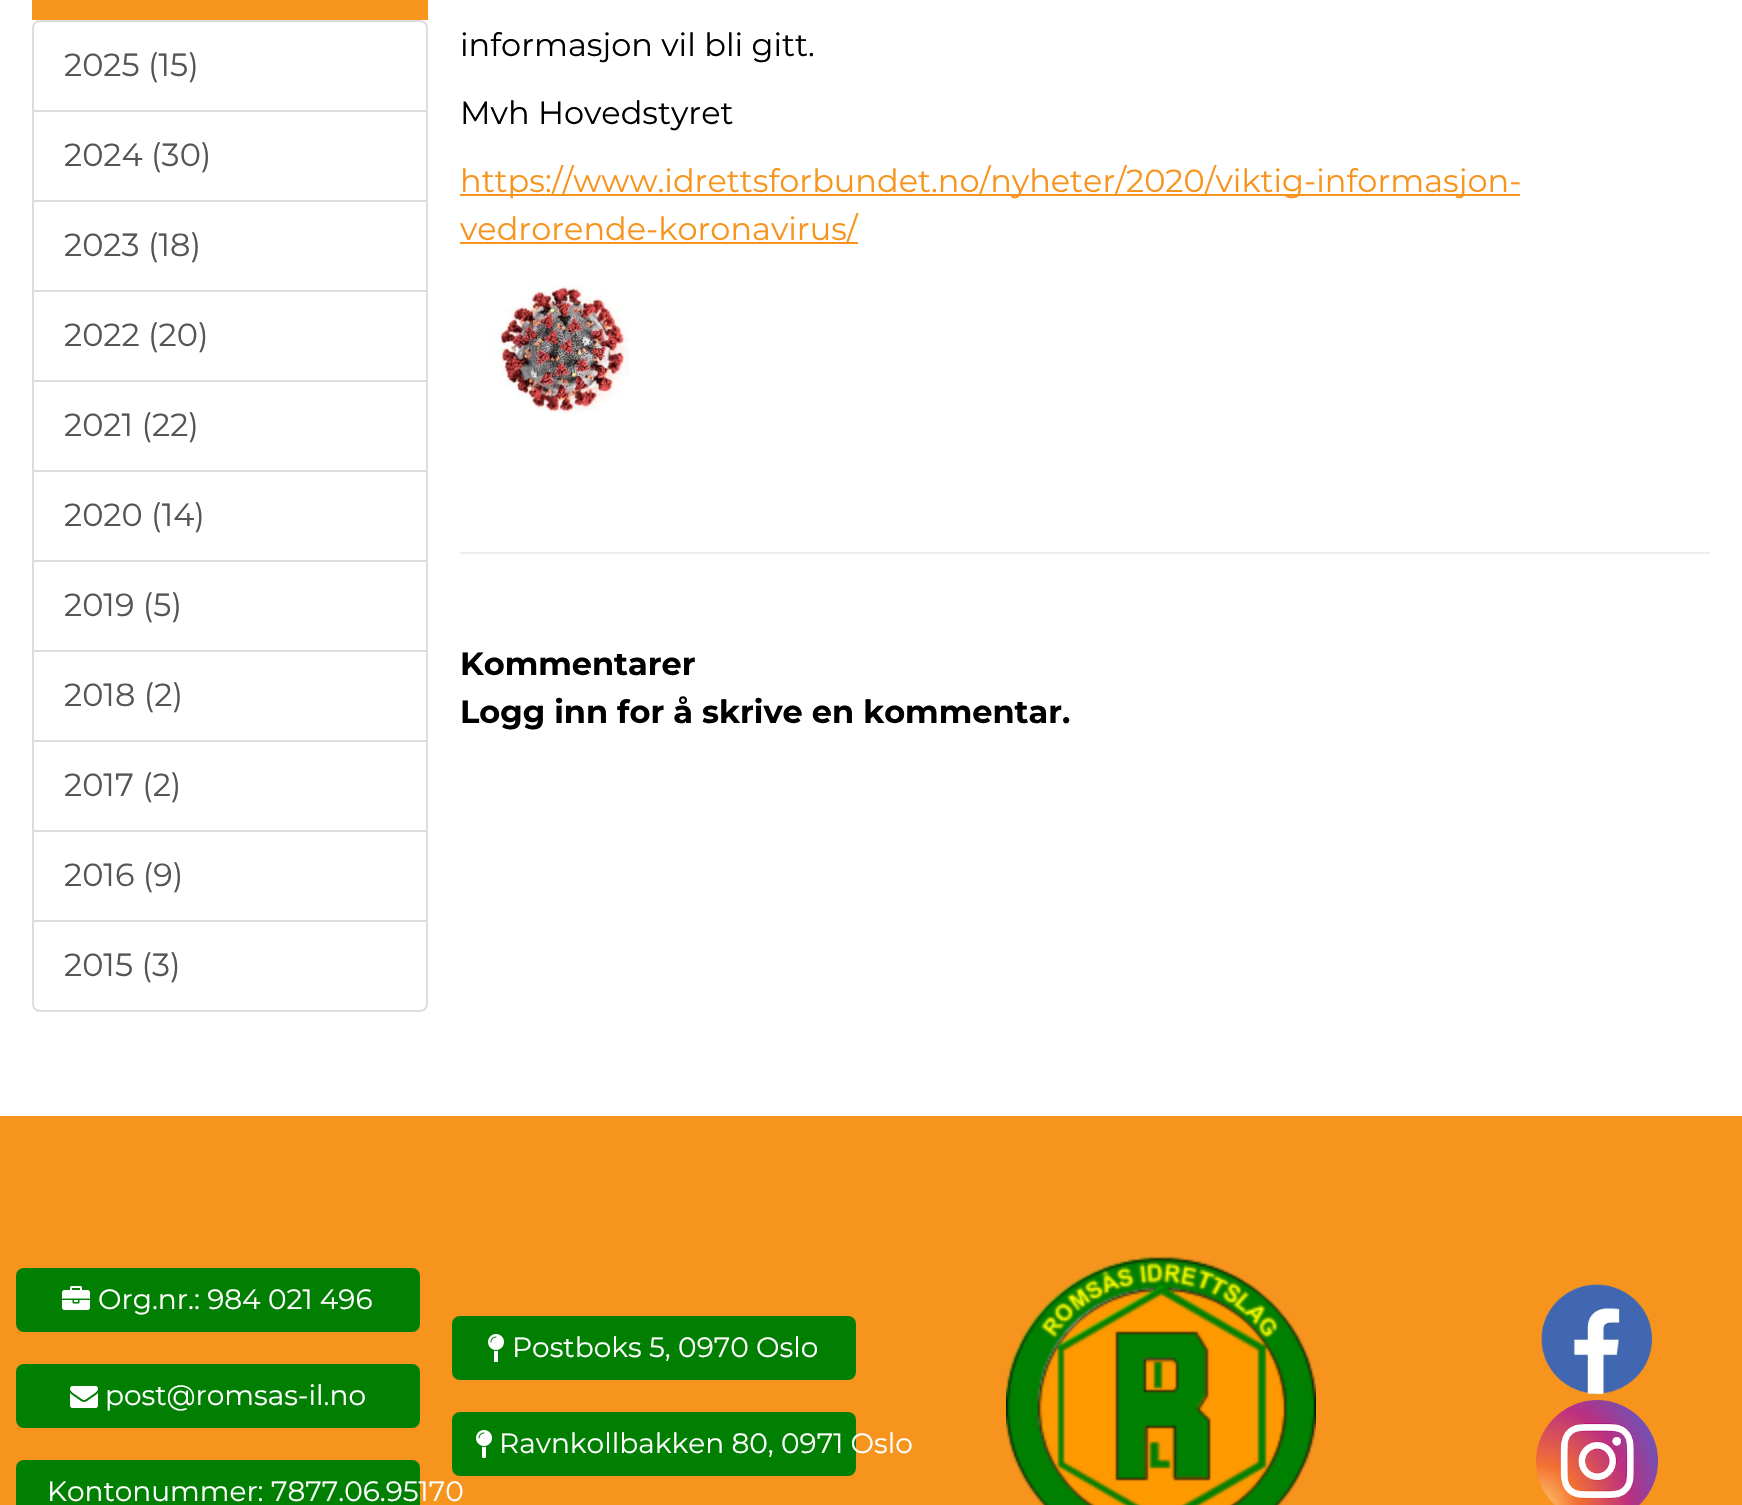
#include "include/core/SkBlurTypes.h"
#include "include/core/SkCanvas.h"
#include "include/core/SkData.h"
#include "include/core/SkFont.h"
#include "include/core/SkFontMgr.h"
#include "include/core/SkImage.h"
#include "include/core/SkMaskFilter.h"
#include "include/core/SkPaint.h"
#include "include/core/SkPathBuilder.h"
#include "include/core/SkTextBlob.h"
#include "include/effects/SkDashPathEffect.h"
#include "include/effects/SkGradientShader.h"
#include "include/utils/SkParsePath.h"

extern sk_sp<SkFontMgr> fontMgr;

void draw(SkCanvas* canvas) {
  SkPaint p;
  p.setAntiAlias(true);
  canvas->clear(SK_ColorWHITE);
  p.setColor(SkColorSetRGB(247, 149, 29));
  canvas->drawRect(SkRect::MakeLTRB(32, 0, 428, 20), p);
  p.setStyle(SkPaint::kStroke_Style);
  p.setStrokeWidth(2);
  p.setColor(SkColorSetRGB(221, 221, 221));
  canvas->drawPath(SkPathBuilder().moveTo(40, 21).lineTo(420, 21).cubicTo(424, 21, 427, 24, 427, 28).lineTo(427, 111).lineTo(33, 111).lineTo(33, 28).cubicTo(33, 24, 36, 21, 40, 21).close().detach(), p);
  canvas->drawRect(SkRect::MakeLTRB(33, 111, 427, 201), p);
  canvas->drawRect(SkRect::MakeLTRB(33, 201, 427, 291), p);
  canvas->drawRect(SkRect::MakeLTRB(33, 291, 427, 381), p);
  canvas->drawRect(SkRect::MakeLTRB(33, 381, 427, 471), p);
  canvas->drawRect(SkRect::MakeLTRB(33, 471, 427, 561), p);
  canvas->drawRect(SkRect::MakeLTRB(33, 561, 427, 651), p);
  canvas->drawRect(SkRect::MakeLTRB(33, 651, 427, 741), p);
  canvas->drawRect(SkRect::MakeLTRB(33, 741, 427, 831), p);
  canvas->drawRect(SkRect::MakeLTRB(33, 831, 427, 921), p);
  p.setStyle(SkPaint::kFill_Style);
  p.setColor(SK_ColorWHITE);
  canvas->drawPath(SkPathBuilder().moveTo(33, 921).lineTo(427, 921).lineTo(427, 1004).cubicTo(427, 1008, 424, 1011, 420, 1011).lineTo(40, 1011).cubicTo(36, 1011, 33, 1008, 33, 1004).close().detach(), p);
  p.setStyle(SkPaint::kStroke_Style);
  p.setColor(SkColorSetRGB(221, 221, 221));
  canvas->drawPath(SkPathBuilder().moveTo(33, 921).lineTo(427, 921).lineTo(427, 1004).cubicTo(427, 1008, 424, 1011, 420, 1011).lineTo(40, 1011).cubicTo(36, 1011, 33, 1008, 33, 1004).close().detach(), p);
  p.setStyle(SkPaint::kFill_Style);
  p.setColor(SkColorSetRGB(247, 148, 29));
  canvas->drawRect(SkRect::MakeLTRB(460, 194, 1520, 196), p);
  canvas->drawRect(SkRect::MakeLTRB(460, 242, 858, 244), p);
  canvas->drawImageRect(SkImages::DeferredFromEncodedData(SkData::MakeFromFileName("images/1.png")), SkRect::MakeLTRB(494, 284, 630, 414), SkSamplingOptions());
  p.setColor(SkColorSetRGB(238, 238, 238));
  canvas->drawRect(SkRect::MakeLTRB(460, 552, 1710, 554), p);
  p.setColor(SkColorSetRGB(247, 148, 29));
  canvas->drawRect(SkRect::MakeLTRB(0, 1116, 1742, 1505), p);
  p.setColor(SkColorSetRGB(1, 127, 2));
  canvas->drawRoundRect(SkRect::MakeLTRB(16, 1268, 420, 1332), 8, 8, p);
  canvas->drawImageRect(SkImages::DeferredFromEncodedData(SkData::MakeFromFileName("images/2.png")), SkRect::MakeLTRB(62, 1286, 90, 1310), SkSamplingOptions());
  canvas->drawRoundRect(SkRect::MakeLTRB(16, 1364, 420, 1428), 8, 8, p);
  canvas->drawImageRect(SkImages::DeferredFromEncodedData(SkData::MakeFromFileName("images/3.png")), SkRect::MakeLTRB(70, 1386, 98, 1408), SkSamplingOptions());
  canvas->drawRoundRect(SkRect::MakeLTRB(16, 1460, 420, 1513), 8, 8, p);
  canvas->drawRoundRect(SkRect::MakeLTRB(452, 1316, 856, 1380), 8, 8, p);
  canvas->drawImageRect(SkImages::DeferredFromEncodedData(SkData::MakeFromFileName("images/4.png")), SkRect::MakeLTRB(488, 1334, 504, 1362), SkSamplingOptions());
  canvas->drawRoundRect(SkRect::MakeLTRB(452, 1412, 856, 1476), 8, 8, p);
  canvas->drawImageRect(SkImages::DeferredFromEncodedData(SkData::MakeFromFileName("images/4.png")), SkRect::MakeLTRB(476, 1430, 492, 1458), SkSamplingOptions());
  canvas->drawImageRect(SkImages::DeferredFromEncodedData(SkData::MakeFromFileName("images/5.png")), SkRect::MakeLTRB(1006, 1256, 1316, 1505), SkSamplingOptions());
  canvas->drawImageRect(SkImages::DeferredFromEncodedData(SkData::MakeFromFileName("images/6.png")), SkRect::MakeLTRB(1541, 1284, 1653, 1395), SkSamplingOptions());
  canvas->drawImageRect(SkImages::DeferredFromEncodedData(SkData::MakeFromFileName("images/7.png")), SkRect::MakeLTRB(1536, 1400, 1658, 1505), SkSamplingOptions());
  SkFont font1(fontMgr->matchFamilyStyle("Montserrat", SkFontStyle::Normal()), 32);
  font1.setSubpixel(true);
  p.setColor(SkColorSetRGB(85, 85, 85));
  canvas->drawString("2025 (15)", 64, 76, font1, p);
  canvas->drawString("2024 (30)", 64, 166, font1, p);
  canvas->drawString("2023 (18)", 64, 256, font1, p);
  canvas->drawString("2022 (20)", 64, 346, font1, p);
  canvas->drawString("2021 (22)", 64, 436, font1, p);
  canvas->drawString("2020 (14)", 64, 526, font1, p);
  canvas->drawString("2019 (5)", 64, 616, font1, p);
  canvas->drawString("2018 (2)", 64, 706, font1, p);
  canvas->drawString("2017 (2)", 64, 796, font1, p);
  canvas->drawString("2016 (9)", 64, 886, font1, p);
  canvas->drawString("2015 (3)", 64, 976, font1, p);
  p.setColor(SK_ColorBLACK);
  canvas->drawString("informasjon vil bli gitt.", 460, 56, font1, p);
  canvas->drawString("Mvh Hovedstyret", 460, 124, font1, p);
  p.setColor(SkColorSetRGB(247, 148, 29));
  canvas->drawString("https://www.idrettsforbundet.no/nyheter/2020/viktig-informasjon-", 460, 192, font1, p);
  canvas->drawString("vedrorende-koronavirus/", 460, 240, font1, p);
  SkFont font2(fontMgr->matchFamilyStyle("Montserrat", SkFontStyle::Bold()), 32);
  font2.setSubpixel(true);
  p.setColor(SK_ColorBLACK);
  canvas->drawString("Kommentarer", 460, 675, font2, p);
  canvas->drawString("Logg inn for å skrive en kommentar.", 460, 723, font2, p);
  SkFont font3(fontMgr->matchFamilyStyle("Montserrat", SkFontStyle::Normal()), 28);
  font3.setSubpixel(true);
  p.setColor(SK_ColorWHITE);
  canvas->drawString("Org.nr.: 984 021 496", 98, 1309, font3, p);
  canvas->drawString("post@romsas-il.no", 105, 1405, font3, p);
  canvas->drawString("Kontonummer: 7877.06.95170", 47, 1501, font3, p);
  canvas->drawString("Postboks 5, 0970 Oslo", 512, 1357, font3, p);
  canvas->drawString("Ravnkollbakken 80, 0971 Oslo", 499, 1453, font3, p);
}
